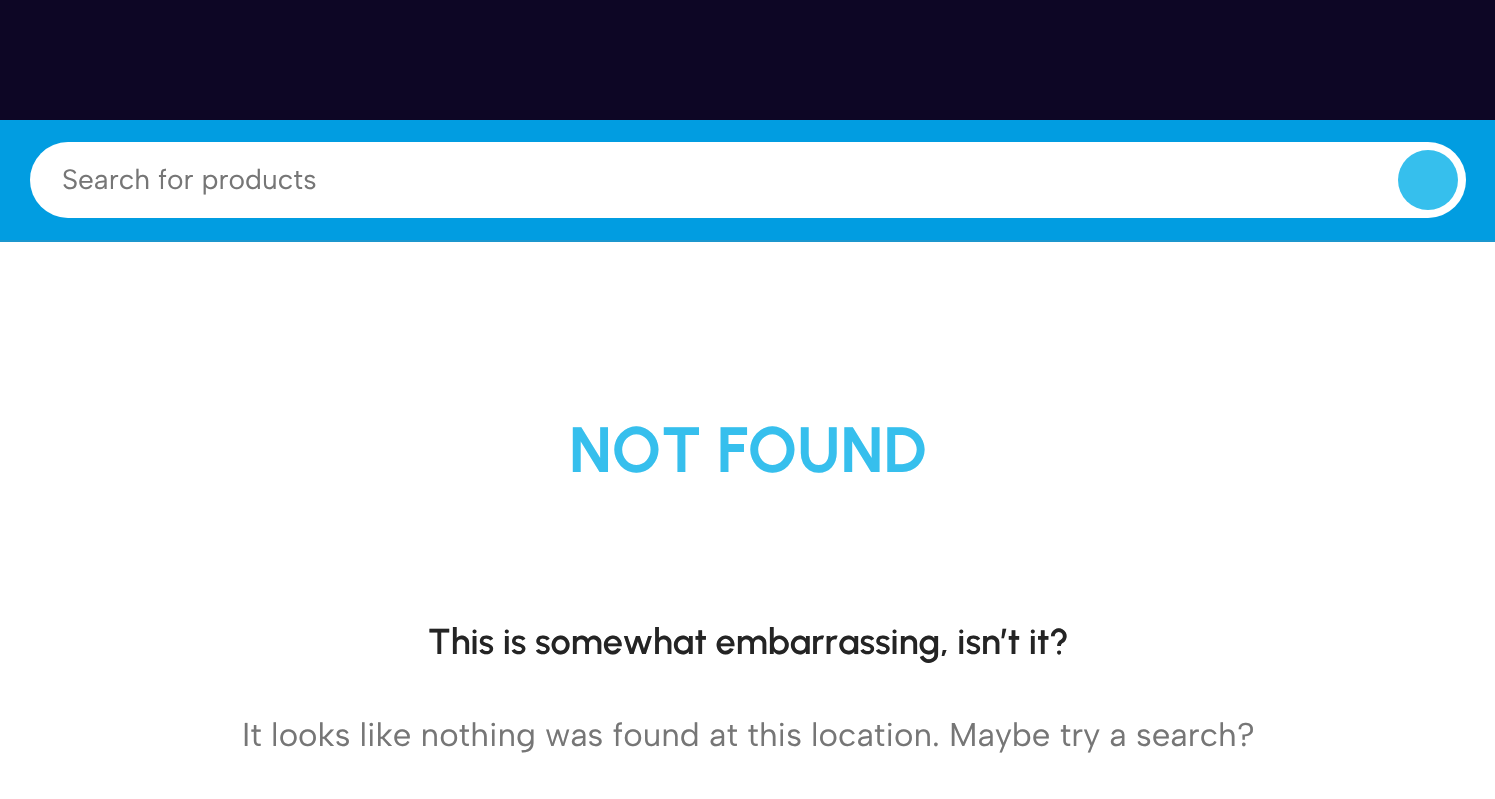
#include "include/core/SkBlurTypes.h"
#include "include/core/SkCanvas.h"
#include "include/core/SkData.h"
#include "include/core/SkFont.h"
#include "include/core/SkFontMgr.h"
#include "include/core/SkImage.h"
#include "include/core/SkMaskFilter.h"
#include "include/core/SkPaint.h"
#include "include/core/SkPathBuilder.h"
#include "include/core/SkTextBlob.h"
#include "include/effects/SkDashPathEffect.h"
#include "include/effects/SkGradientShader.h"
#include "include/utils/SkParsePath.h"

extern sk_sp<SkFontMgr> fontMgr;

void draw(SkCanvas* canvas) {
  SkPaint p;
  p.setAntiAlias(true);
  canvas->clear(SK_ColorWHITE);
  p.setColor(SkColorSetRGB(13, 6, 37));
  canvas->drawRect(SkRect::MakeLTRB(0, 0, 1495, 120), p);
  p.setColor(SkColorSetRGB(1, 157, 225));
  canvas->drawRect(SkRect::MakeLTRB(0, 120, 1495, 240), p);
  p.setColor(SkColorSetRGB(27, 151, 206));
  canvas->drawRect(SkRect::MakeLTRB(0, 240, 1495, 242), p);
  p.setColor(SK_ColorWHITE);
  canvas->drawRoundRect(SkRect::MakeLTRB(30, 142, 1466, 218), 38, 38, p);
  p.setStyle(SkPaint::kStroke_Style);
  p.setStrokeWidth(2);
  p.setColor(SkColorSetARGB(51, 255, 255, 255));
  canvas->drawRoundRect(SkRect::MakeLTRB(31, 143, 1465, 217), 37, 37, p);
  p.setStyle(SkPaint::kFill_Style);
  p.setColor(SkColorSetRGB(54, 191, 237));
  canvas->drawCircle(1428, 180, 30, p);
  SkFont font1(fontMgr->matchFamilyStyle("Albert Sans", SkFontStyle::Normal()), 28);
  font1.setSubpixel(true);
  p.setColor(SkColorSetRGB(118, 118, 118));
  canvas->drawString("Search for products", 62, 189, font1, p);
  SkFont font2(fontMgr->matchFamilyStyle("Urbanist", SkFontStyle::Bold()), 64);
  font2.setSubpixel(true);
  p.setColor(SkColorSetRGB(54, 191, 237));
  canvas->drawString("NOT FOUND", 569, 472, font2, p);
  SkFont font3(fontMgr->matchFamilyStyle("Urbanist", SkFontStyle(600, SkFontStyle::kNormal_Width, SkFontStyle::kUpright_Slant)), 36);
  font3.setSubpixel(true);
  p.setColor(SkColorSetRGB(36, 36, 36));
  canvas->drawString("This is somewhat embarrassing, isn’t it?", 428, 654, font3, p);
  SkFont font4(fontMgr->matchFamilyStyle("Albert Sans", SkFontStyle::Normal()), 33);
  font4.setSubpixel(true);
  p.setColor(SkColorSetRGB(118, 118, 118));
  canvas->drawString("It looks like nothing was found at this location. Maybe try a search?", 242, 746, font4, p);
}
